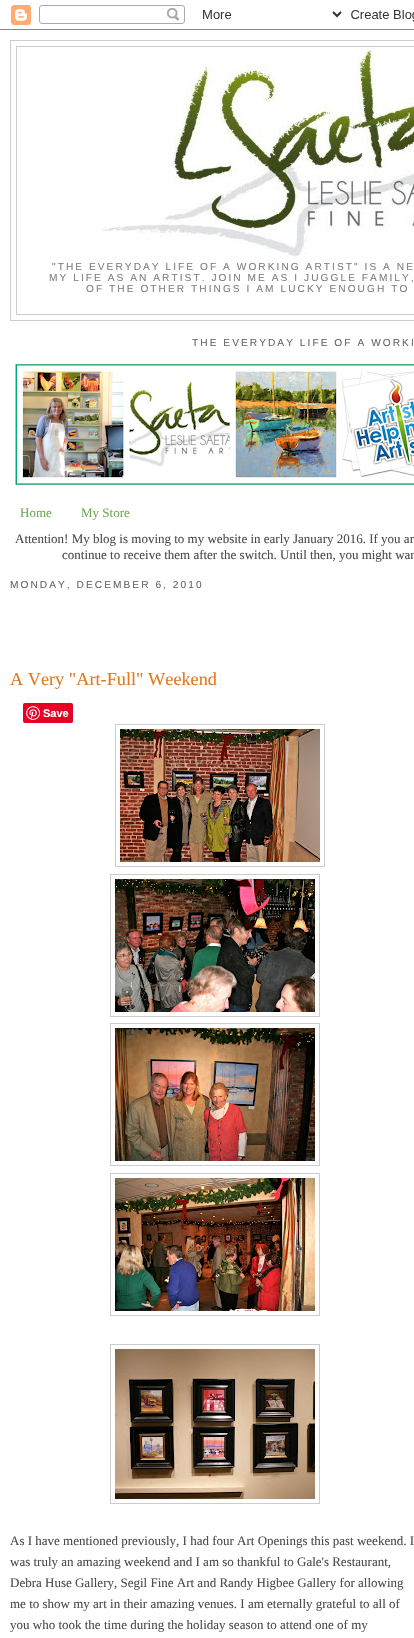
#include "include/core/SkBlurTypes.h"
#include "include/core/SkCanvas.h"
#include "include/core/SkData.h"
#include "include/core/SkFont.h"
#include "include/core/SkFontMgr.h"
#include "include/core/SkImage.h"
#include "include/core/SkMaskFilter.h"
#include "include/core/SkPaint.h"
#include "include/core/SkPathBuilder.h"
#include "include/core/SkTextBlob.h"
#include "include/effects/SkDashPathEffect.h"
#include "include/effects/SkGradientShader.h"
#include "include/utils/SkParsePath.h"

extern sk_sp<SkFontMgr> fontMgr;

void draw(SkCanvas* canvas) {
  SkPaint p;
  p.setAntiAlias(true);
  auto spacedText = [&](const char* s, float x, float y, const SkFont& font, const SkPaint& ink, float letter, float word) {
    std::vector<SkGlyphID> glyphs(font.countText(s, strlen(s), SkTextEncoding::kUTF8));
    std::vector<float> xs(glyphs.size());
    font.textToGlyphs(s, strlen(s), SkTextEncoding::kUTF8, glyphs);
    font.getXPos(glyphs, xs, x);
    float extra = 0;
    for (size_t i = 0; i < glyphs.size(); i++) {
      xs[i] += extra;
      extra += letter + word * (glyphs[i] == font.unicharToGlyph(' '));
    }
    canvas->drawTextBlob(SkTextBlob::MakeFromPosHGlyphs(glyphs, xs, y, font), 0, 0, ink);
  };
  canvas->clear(SK_ColorWHITE);
  canvas->drawImageRect(SkImages::DeferredFromEncodedData(SkData::MakeFromFileName("images/1.png")), SkRect::MakeLTRB(0, 5, 414, 30), SkSamplingOptions());
  p.setStyle(SkPaint::kStroke_Style);
  p.setStrokeWidth(1);
  p.setColor(SkColorSetRGB(204, 204, 204));
  canvas->drawRect(SkRect::MakeLTRB(10.5f, 40.5f, 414.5f, 320.5f), p);
  canvas->drawRect(SkRect::MakeLTRB(16.5f, 46.5f, 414.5f, 314.5f), p);
  canvas->drawImageRect(SkImages::DeferredFromEncodedData(SkData::MakeFromFileName("images/2.png")), SkRect::MakeLTRB(102, 47, 414, 256), SkSamplingOptions());
  canvas->drawImageRect(SkImages::DeferredFromEncodedData(SkData::MakeFromFileName("images/3.png")), SkRect::MakeLTRB(15, 364, 414, 485), SkSamplingOptions());
  p.setStyle(SkPaint::kFill_Style);
  p.setColor(SkColorSetRGB(230, 0, 35));
  canvas->drawRoundRect(SkRect::MakeLTRB(23, 703, 73, 723), 2, 2, p);
  canvas->drawImageRect(SkImages::DeferredFromEncodedData(SkData::MakeFromFileName("images/4.png")), SkRect::MakeLTRB(26, 706, 40, 720), SkSamplingOptions());
  p.setStyle(SkPaint::kStroke_Style);
  p.setColor(SkColorSetRGB(204, 204, 204));
  canvas->drawRect(SkRect::MakeLTRB(115.5f, 724.5f, 324.5f, 866.5f), p);
  canvas->drawImageRect(SkImages::DeferredFromEncodedData(SkData::MakeFromFileName("images/5.png")), SkRect::MakeLTRB(120, 729, 320, 862), SkSamplingOptions());
  canvas->drawRect(SkRect::MakeLTRB(110.5f, 874.5f, 319.5f, 1016.5f), p);
  canvas->drawImageRect(SkImages::DeferredFromEncodedData(SkData::MakeFromFileName("images/6.png")), SkRect::MakeLTRB(115, 879, 315, 1012), SkSamplingOptions());
  canvas->drawRect(SkRect::MakeLTRB(110.5f, 1023.5f, 319.5f, 1165.5f), p);
  canvas->drawImageRect(SkImages::DeferredFromEncodedData(SkData::MakeFromFileName("images/7.png")), SkRect::MakeLTRB(115, 1028, 315, 1161), SkSamplingOptions());
  canvas->drawRect(SkRect::MakeLTRB(110.5f, 1173.5f, 319.5f, 1315.5f), p);
  canvas->drawImageRect(SkImages::DeferredFromEncodedData(SkData::MakeFromFileName("images/8.png")), SkRect::MakeLTRB(115, 1178, 315, 1311), SkSamplingOptions());
  canvas->drawRect(SkRect::MakeLTRB(110.5f, 1344.5f, 319.5f, 1503.5f), p);
  canvas->drawImageRect(SkImages::DeferredFromEncodedData(SkData::MakeFromFileName("images/9.png")), SkRect::MakeLTRB(115, 1349, 315, 1499), SkSamplingOptions());
  SkFont font1(fontMgr->matchFamilyStyle("Liberation Sans", SkFontStyle::Normal()), 10.15f);
  font1.setSubpixel(true);
  p.setStyle(SkPaint::kFill_Style);
  p.setColor(SkColorSetRGB(127, 127, 127));
  spacedText("\"THE EVERYDAY LIFE OF A WORKING ARTIST\" IS A NE", 52, 270, font1, p, 2.05f, 0);
  spacedText("MY LIFE AS AN ARTIST. JOIN ME AS I JUGGLE FAMILY,", 49, 281, font1, p, 2.05f, 0);
  spacedText("OF THE OTHER THINGS I AM LUCKY ENOUGH TO", 86, 292, font1, p, 2.05f, 0);
  p.setColor(SkColorSetRGB(102, 102, 102));
  spacedText("THE EVERYDAY LIFE OF A WORKI", 192, 346, font1, p, 2.05f, 0);
  SkFont font2(fontMgr->matchFamilyStyle("Liberation Serif", SkFontStyle::Normal()), 13);
  font2.setSubpixel(true);
  p.setColor(SkColorSetRGB(112, 170, 85));
  canvas->drawString("Home", 20, 517, font2, p);
  canvas->drawString("My Store", 81, 517, font2, p);
  p.setColor(SkColorSetRGB(76, 76, 76));
  canvas->drawString("Attention! My blog is moving to my website in early January 2016. If you ar", 15, 543, font2, p);
  canvas->drawString("continue to receive them after the switch. Until then, you might wan", 62, 559, font2, p);
  p.setColor(SkColorSetRGB(102, 102, 102));
  spacedText("MONDAY, DECEMBER 6, 2010", 10, 588, font1, p, 2.05f, 0);
  SkFont font3(fontMgr->matchFamilyStyle("Liberation Serif", SkFontStyle::Normal()), 18.25f);
  font3.setSubpixel(true);
  p.setColor(SkColorSetRGB(225, 119, 30));
  canvas->drawString("A Very \"Art-Full\" Weekend", 10, 685, font3, p);
  SkFont font4(fontMgr->matchFamilyStyle("Liberation Sans", SkFontStyle::Bold()), 11);
  font4.setSubpixel(true);
  p.setColor(SK_ColorWHITE);
  canvas->drawString("Save", 43, 717, font4, p);
  p.setColor(SkColorSetRGB(76, 76, 76));
  canvas->drawString("As I have mentioned previously, I had four Art Openings this past weekend. I", 10, 1545, font2, p);
  canvas->drawString("was truly an amazing weekend and I am so thankful to Gale's Restaurant,", 10, 1566, font2, p);
  canvas->drawString("Debra Huse Gallery, Segil Fine Art and Randy Higbee Gallery for allowing", 10, 1587, font2, p);
  canvas->drawString("me to show my art in their amazing venues. I am eternally grateful to all of", 10, 1608, font2, p);
  canvas->drawString("you who took the time during the holiday season to attend one of my", 10, 1629, font2, p);
}
